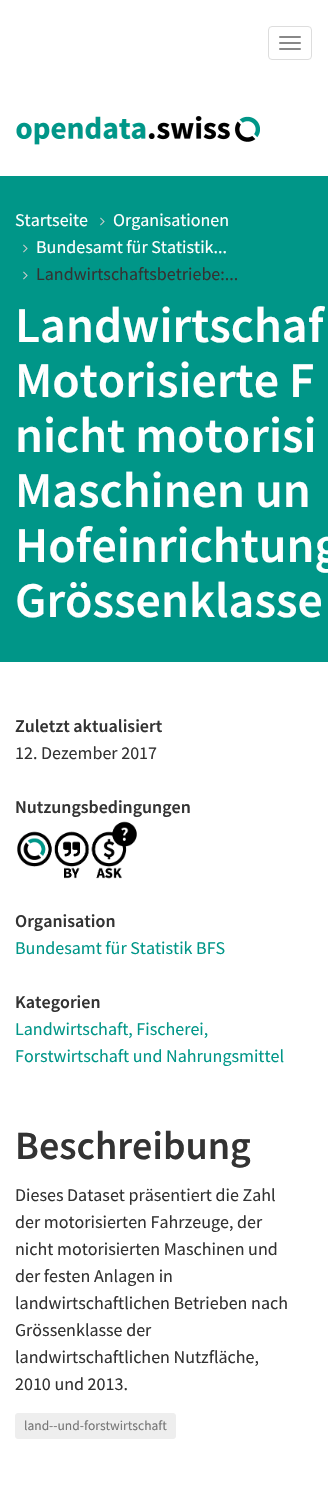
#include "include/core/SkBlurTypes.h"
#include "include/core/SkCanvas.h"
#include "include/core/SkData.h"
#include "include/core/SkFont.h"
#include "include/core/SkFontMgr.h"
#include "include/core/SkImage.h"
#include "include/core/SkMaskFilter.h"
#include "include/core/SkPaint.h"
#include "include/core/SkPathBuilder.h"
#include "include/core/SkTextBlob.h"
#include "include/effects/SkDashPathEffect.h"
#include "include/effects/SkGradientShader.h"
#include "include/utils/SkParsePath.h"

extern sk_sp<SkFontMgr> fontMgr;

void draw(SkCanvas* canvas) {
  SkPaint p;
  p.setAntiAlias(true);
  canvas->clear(SK_ColorWHITE);
  p.setStyle(SkPaint::kStroke_Style);
  p.setStrokeWidth(1);
  p.setColor(SkColorSetRGB(221, 221, 221));
  canvas->drawRoundRect(SkRect::MakeLTRB(268.5f, 26.5f, 311.5f, 59.5f), 3.5f, 3.5f, p);
  p.setStyle(SkPaint::kFill_Style);
  p.setColor(SkColorSetRGB(136, 136, 136));
  canvas->drawRoundRect(SkRect::MakeLTRB(279, 36, 301, 38), 1, 1, p);
  canvas->drawRoundRect(SkRect::MakeLTRB(279, 42, 301, 44), 1, 1, p);
  canvas->drawRoundRect(SkRect::MakeLTRB(279, 48, 301, 50), 1, 1, p);
  canvas->drawImageRect(SkImages::DeferredFromEncodedData(SkData::MakeFromFileName("images/1.png")), SkRect::MakeLTRB(16, 116, 260, 145), SkSamplingOptions());
  p.setColor(SkColorSetRGB(0, 150, 136));
  canvas->drawRect(SkRect::MakeLTRB(0, 176, 328, 662), p);
  canvas->drawImageRect(SkImages::DeferredFromEncodedData(SkData::MakeFromFileName("images/2.png")), SkRect::MakeLTRB(100, 217, 105, 226), SkSamplingOptions());
  canvas->drawImageRect(SkImages::DeferredFromEncodedData(SkData::MakeFromFileName("images/2.png")), SkRect::MakeLTRB(23, 244, 28, 253), SkSamplingOptions());
  canvas->drawImageRect(SkImages::DeferredFromEncodedData(SkData::MakeFromFileName("images/2.png")), SkRect::MakeLTRB(23, 271, 28, 280), SkSamplingOptions());
  canvas->drawImageRect(SkImages::DeferredFromEncodedData(SkData::MakeFromFileName("images/3.png")), SkRect::MakeLTRB(17, 821, 137, 879), SkSamplingOptions());
  p.setColor(SkColorSetRGB(238, 238, 238));
  canvas->drawRoundRect(SkRect::MakeLTRB(15.5f, 1413.5f, 175.5f, 1438.5f), 2.5f, 2.5f, p);
  p.setStyle(SkPaint::kStroke_Style);
  canvas->drawRoundRect(SkRect::MakeLTRB(15.5f, 1413.5f, 175.5f, 1438.5f), 2.5f, 2.5f, p);
  SkFont font1(fontMgr->matchFamilyStyle("Source Sans Pro", SkFontStyle::Normal()), 18);
  font1.setSubpixel(true);
  p.setStyle(SkPaint::kFill_Style);
  p.setColor(SK_ColorWHITE);
  canvas->drawString("Startseite", 15, 226, font1, p);
  canvas->drawString("Organisationen", 113, 226, font1, p);
  canvas->drawString("Bundesamt für Statistik...", 36, 253, font1, p);
  p.setColor(SkColorSetRGB(51, 51, 51));
  canvas->drawString("Landwirtschaftsbetriebe:...", 36, 280, font1, p);
  SkFont font2(fontMgr->matchFamilyStyle("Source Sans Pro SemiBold", SkFontStyle(600, SkFontStyle::kNormal_Width, SkFontStyle::kUpright_Slant)), 50);
  font2.setSubpixel(true);
  p.setColor(SK_ColorWHITE);
  canvas->drawString("Landwirtschaf", 15, 342, font2, p);
  canvas->drawString("Motorisierte F", 15, 397, font2, p);
  canvas->drawString("nicht motorisi", 15, 452, font2, p);
  canvas->drawString("Maschinen un", 15, 507, font2, p);
  canvas->drawString("Hofeinrichtung", 15, 562, font2, p);
  canvas->drawString("Grössenklasse", 15, 617, font2, p);
  SkFont font3(fontMgr->matchFamilyStyle("Source Sans Pro SemiBold", SkFontStyle(600, SkFontStyle::kNormal_Width, SkFontStyle::kUpright_Slant)), 18);
  font3.setSubpixel(true);
  p.setColor(SkColorSetRGB(51, 51, 51));
  canvas->drawString("Zuletzt aktualisiert", 15, 732, font3, p);
  canvas->drawString("12. Dezember 2017", 15, 759, font1, p);
  canvas->drawString("Nutzungsbedingungen", 15, 813, font3, p);
  canvas->drawString("Organisation", 15, 927, font3, p);
  p.setColor(SkColorSetRGB(0, 150, 136));
  canvas->drawString("Bundesamt für Statistik BFS", 15, 954, font1, p);
  p.setColor(SkColorSetRGB(51, 51, 51));
  canvas->drawString("Kategorien", 15, 1008, font3, p);
  p.setColor(SkColorSetRGB(0, 150, 136));
  canvas->drawString("Landwirtschaft, Fischerei,", 15, 1035, font1, p);
  canvas->drawString("Forstwirtschaft und Nahrungsmittel", 15, 1062, font1, p);
  SkFont font4(fontMgr->matchFamilyStyle("Source Sans Pro SemiBold", SkFontStyle(600, SkFontStyle::kNormal_Width, SkFontStyle::kUpright_Slant)), 40);
  font4.setSubpixel(true);
  p.setColor(SkColorSetRGB(51, 51, 51));
  canvas->drawString("Beschreibung", 15, 1159, font4, p);
  canvas->drawString("Dieses Dataset präsentiert die Zahl", 15, 1201, font1, p);
  canvas->drawString("der motorisierten Fahrzeuge, der", 15, 1228, font1, p);
  canvas->drawString("nicht motorisierten Maschinen und", 15, 1255, font1, p);
  canvas->drawString("der festen Anlagen in", 15, 1282, font1, p);
  canvas->drawString("landwirtschaftlichen Betrieben nach", 15, 1309, font1, p);
  canvas->drawString("Grössenklasse der", 15, 1336, font1, p);
  canvas->drawString("landwirtschaftlichen Nutzfläche,", 15, 1363, font1, p);
  canvas->drawString("2010 und 2013.", 15, 1390, font1, p);
  SkFont font5(fontMgr->matchFamilyStyle("Source Sans Pro", SkFontStyle::Normal()), 13.5f);
  font5.setSubpixel(true);
  p.setColor(SkColorSetRGB(118, 118, 118));
  canvas->drawString("land--und-forstwirtschaft", 24, 1430, font5, p);
}
